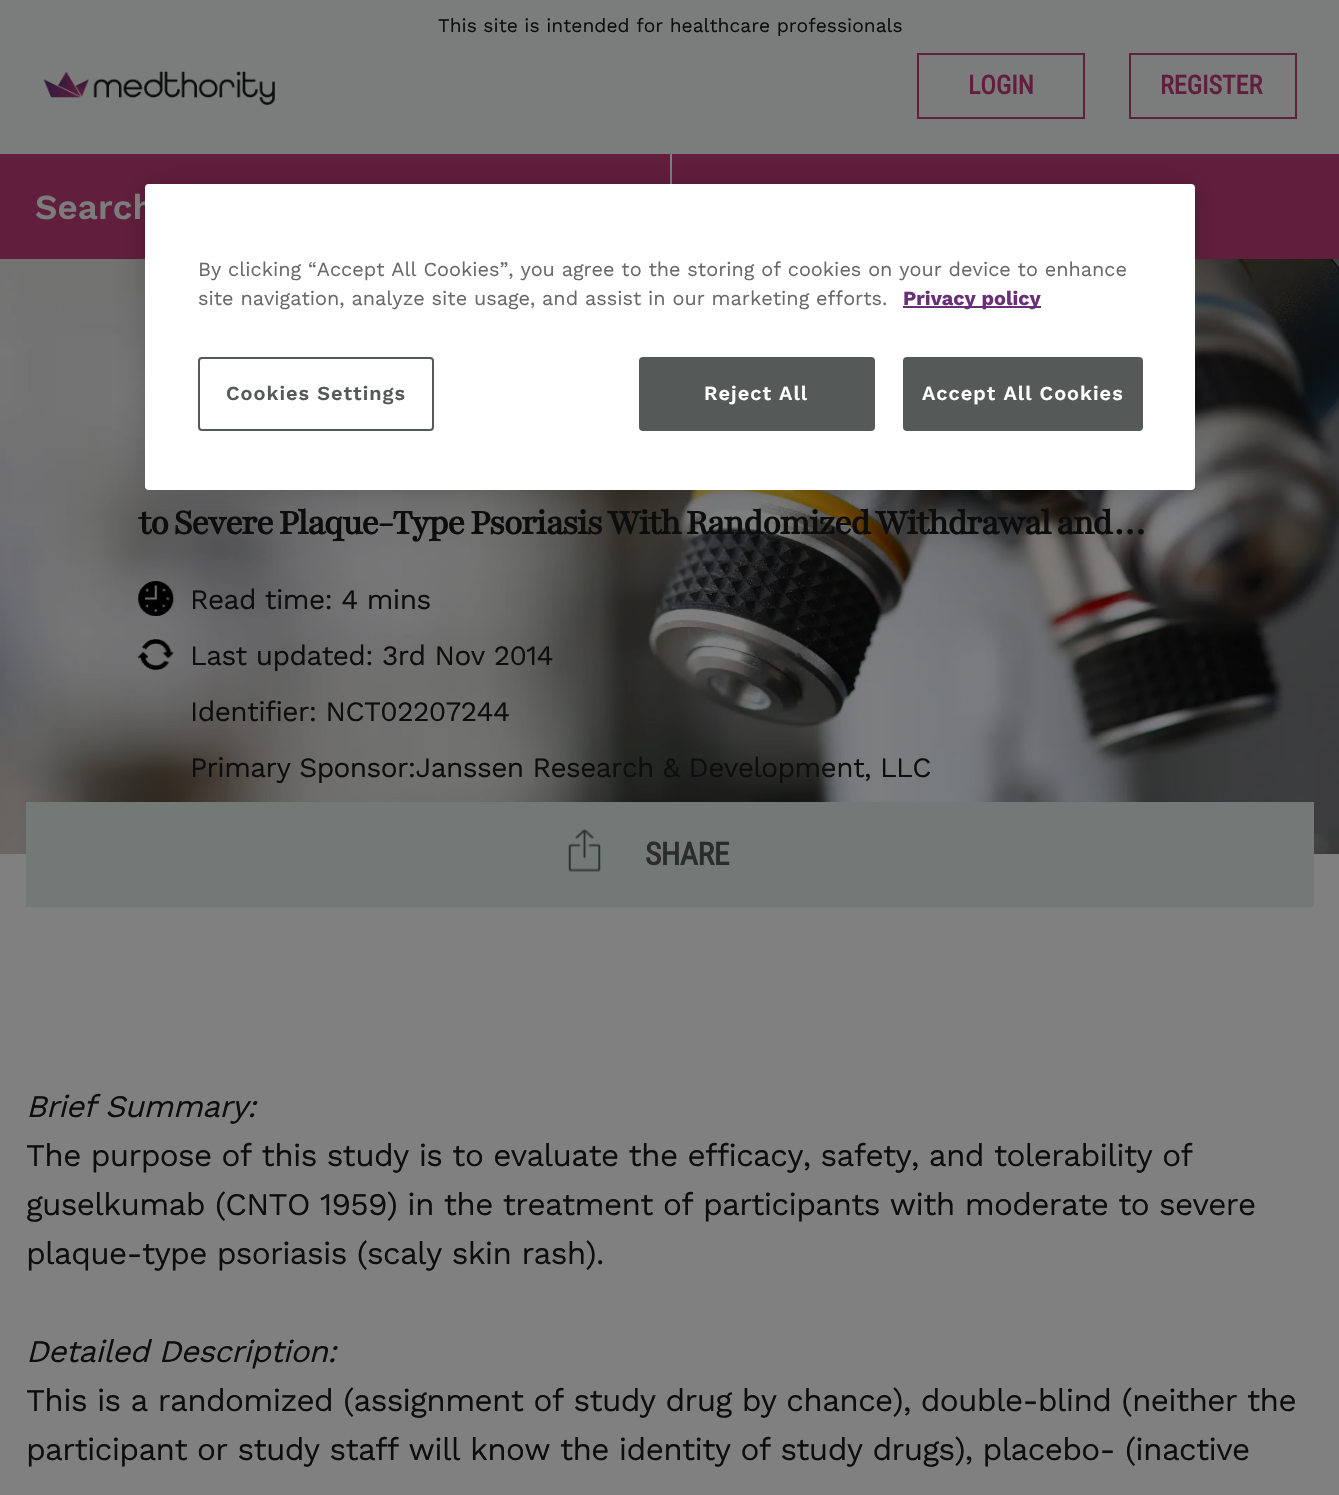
#include "include/core/SkBlurTypes.h"
#include "include/core/SkCanvas.h"
#include "include/core/SkData.h"
#include "include/core/SkFont.h"
#include "include/core/SkFontMgr.h"
#include "include/core/SkImage.h"
#include "include/core/SkMaskFilter.h"
#include "include/core/SkPaint.h"
#include "include/core/SkPathBuilder.h"
#include "include/core/SkTextBlob.h"
#include "include/effects/SkDashPathEffect.h"
#include "include/effects/SkGradientShader.h"
#include "include/utils/SkParsePath.h"

extern sk_sp<SkFontMgr> fontMgr;

void draw(SkCanvas* canvas) {
  SkPaint p;
  p.setAntiAlias(true);
  auto spacedText = [&](const char* s, float x, float y, const SkFont& font, const SkPaint& ink, float letter, float word) {
    std::vector<SkGlyphID> glyphs(font.countText(s, strlen(s), SkTextEncoding::kUTF8));
    std::vector<float> xs(glyphs.size());
    font.textToGlyphs(s, strlen(s), SkTextEncoding::kUTF8, glyphs);
    font.getXPos(glyphs, xs, x);
    float extra = 0;
    for (size_t i = 0; i < glyphs.size(); i++) {
      xs[i] += extra;
      extra += letter + word * (glyphs[i] == font.unicharToGlyph(' '));
    }
    canvas->drawTextBlob(SkTextBlob::MakeFromPosHGlyphs(glyphs, xs, y, font), 0, 0, ink);
  };
  canvas->clear(SkColorSetRGB(128, 128, 128));
  p.setColor(SkColorSetRGB(123, 125, 125));
  canvas->drawRect(SkRect::MakeLTRB(0, 0, 1339, 154), p);
  canvas->drawImageRect(SkImages::DeferredFromEncodedData(SkData::MakeFromFileName("images/1.png")), SkRect::MakeLTRB(43, 71, 275, 105), SkSamplingOptions());
  p.setStyle(SkPaint::kStroke_Style);
  p.setStrokeWidth(2);
  p.setColor(SkColorSetRGB(98, 31, 61));
  canvas->drawRect(SkRect::MakeLTRB(918, 54, 1084, 118), p);
  canvas->drawRect(SkRect::MakeLTRB(1130, 54, 1296, 118), p);
  p.setStyle(SkPaint::kFill_Style);
  canvas->drawRect(SkRect::MakeLTRB(0, 154, 670, 259), p);
  canvas->drawRect(SkRect::MakeLTRB(672, 154, 1339, 259), p);
  canvas->drawImageRect(SkImages::DeferredFromEncodedData(SkData::MakeFromFileName("images/2.png")), SkRect::MakeLTRB(0, 259, 1339, 854), SkSamplingOptions());
  p.setColor(SkColorSetARGB(51, 0, 0, 0));
  p.setMaskFilter(SkMaskFilter::MakeBlur(kNormal_SkBlurStyle, 16));
  canvas->drawRoundRect(SkRect::MakeLTRB(145, 184, 1195, 490), 4, 4, p);
  p.setMaskFilter(nullptr);
  canvas->drawImageRect(SkImages::DeferredFromEncodedData(SkData::MakeFromFileName("images/3.png")), SkRect::MakeLTRB(138, 581, 174, 616), SkSamplingOptions());
  canvas->drawImageRect(SkImages::DeferredFromEncodedData(SkData::MakeFromFileName("images/4.png")), SkRect::MakeLTRB(138, 639, 174, 671), SkSamplingOptions());
  p.setColor(SkColorSetRGB(115, 121, 119));
  canvas->drawRect(SkRect::MakeLTRB(26, 802, 1314, 907), p);
  canvas->drawImageRect(SkImages::DeferredFromEncodedData(SkData::MakeFromFileName("images/5.png")), SkRect::MakeLTRB(568, 829, 601, 872), SkSamplingOptions());
  SkFont font1(fontMgr->matchFamilyStyle("Work Sans", SkFontStyle::Normal()), 19.25f);
  font1.setSubpixel(true);
  p.setColor(SkColorSetRGB(13, 13, 13));
  canvas->drawString("This site is intended for healthcare professionals", 438, 32, font1, p);
  SkFont font2(fontMgr->matchFamilyStyle("Roboto Condensed", SkFontStyle::Bold()), 26);
  font2.setSubpixel(true);
  p.setColor(SkColorSetRGB(98, 31, 61));
  canvas->drawString("LOGIN", 968, 94, font2, p);
  canvas->drawString("REGISTER", 1160, 94, font2, p);
  SkFont font3(fontMgr->matchFamilyStyle("Work Sans", SkFontStyle(600, SkFontStyle::kNormal_Width, SkFontStyle::kUpright_Slant)), 35);
  font3.setSubpixel(true);
  p.setColor(SkColorSetRGB(123, 125, 125));
  canvas->drawString("Search", 35, 219, font3, p);
  p.setColor(SK_ColorWHITE);
  canvas->drawRoundRect(SkRect::MakeLTRB(145, 184, 1195, 490), 4, 4, p);
  SkFont font4(fontMgr->matchFamilyStyle("Work Sans", SkFontStyle::Normal()), 19.9f);
  font4.setSubpixel(true);
  p.setColor(SkColorSetRGB(105, 105, 105));
  canvas->drawString("By clicking “Accept All Cookies”, you agree to the storing of cookies on your device to enhance", 198, 276, font4, p);
  canvas->drawString("site navigation, analyze site usage, and assist in our marketing efforts.", 198, 305, font4, p);
  p.setColor(SkColorSetRGB(105, 48, 119));
  canvas->drawRect(SkRect::MakeLTRB(903, 306, 1041, 308), p);
  SkFont font5(fontMgr->matchFamilyStyle("Work Sans", SkFontStyle::Bold()), 19.9f);
  font5.setSubpixel(true);
  canvas->drawString("Privacy policy", 903, 305, font5, p);
  p.setStyle(SkPaint::kStroke_Style);
  p.setColor(SkColorSetRGB(85, 89, 87));
  canvas->drawRoundRect(SkRect::MakeLTRB(199, 358, 433, 430), 3, 3, p);
  SkFont font6(fontMgr->matchFamilyStyle("Work Sans", SkFontStyle(600, SkFontStyle::kNormal_Width, SkFontStyle::kUpright_Slant)), 19.9f);
  font6.setSubpixel(true);
  p.setStyle(SkPaint::kFill_Style);
  spacedText("Cookies Settings", 226, 400, font6, p, 1, 0);
  canvas->drawRoundRect(SkRect::MakeLTRB(640, 358, 874, 430), 3, 3, p);
  p.setStyle(SkPaint::kStroke_Style);
  canvas->drawRoundRect(SkRect::MakeLTRB(640, 358, 874, 430), 3, 3, p);
  p.setStyle(SkPaint::kFill_Style);
  p.setColor(SK_ColorWHITE);
  spacedText("Reject All", 704, 400, font6, p, 1, 0);
  p.setColor(SkColorSetRGB(85, 89, 87));
  canvas->drawRoundRect(SkRect::MakeLTRB(904, 358, 1142, 430), 3, 3, p);
  p.setStyle(SkPaint::kStroke_Style);
  canvas->drawRoundRect(SkRect::MakeLTRB(904, 358, 1142, 430), 3, 3, p);
  p.setStyle(SkPaint::kFill_Style);
  p.setColor(SK_ColorWHITE);
  spacedText("Accept All Cookies", 922, 400, font6, p, 1, 0);
  SkFont font7(fontMgr->matchFamilyStyle("Playfair", SkFontStyle::Bold()), 38.5f);
  font7.setSubpixel(true);
  p.setColor(SkColorSetRGB(13, 13, 13));
  spacedText("to Severe Plaque-Type Psoriasis With Randomized Withdrawal and…", 138, 534, font7, p, -1.75f, -0.25f);
  SkFont font8(fontMgr->matchFamilyStyle("Work Sans", SkFontStyle::Normal()), 28);
  font8.setSubpixel(true);
  spacedText("Read time: 4 mins", 190, 609, font8, p, -0.58f, 0);
  spacedText("Last updated: 3rd Nov 2014", 190, 665, font8, p, -0.58f, 0);
  spacedText("Identifier: NCT02207244", 190, 721, font8, p, -0.58f, 0);
  spacedText("Primary Sponsor:Janssen Research & Development, LLC", 190, 777, font8, p, -0.58f, 0);
  SkFont font9(fontMgr->matchFamilyStyle("Roboto Condensed", SkFontStyle::Bold()), 31.5f);
  font9.setSubpixel(true);
  p.setColor(SkColorSetRGB(43, 45, 44));
  spacedText("SHARE", 645, 865, font9, p, -0.5f, 0);
  SkFont font10(fontMgr->matchFamilyStyle("Work Sans", SkFontStyle::Italic()), 31.5f);
  font10.setSubpixel(true);
  p.setColor(SkColorSetRGB(13, 13, 13));
  spacedText("Brief Summary:", 26, 1117, font10, p, -0.67f, 0);
  SkFont font11(fontMgr->matchFamilyStyle("Work Sans", SkFontStyle::Normal()), 31.5f);
  font11.setSubpixel(true);
  spacedText("The purpose of this study is to evaluate the efficacy, safety, and tolerability of", 26, 1166, font11, p, -0.67f, 0);
  spacedText("guselkumab (CNTO 1959) in the treatment of participants with moderate to severe", 26, 1215, font11, p, -0.67f, 0);
  spacedText("plaque-type psoriasis (scaly skin rash).", 26, 1264, font11, p, -0.67f, 0);
  spacedText("Detailed Description:", 26, 1362, font10, p, -0.67f, 0);
  spacedText("This is a randomized (assignment of study drug by chance), double-blind (neither the", 26, 1411, font11, p, -0.67f, 0);
  spacedText("participant or study staff will know the identity of study drugs), placebo- (inactive", 26, 1460, font11, p, -0.67f, 0);
}
